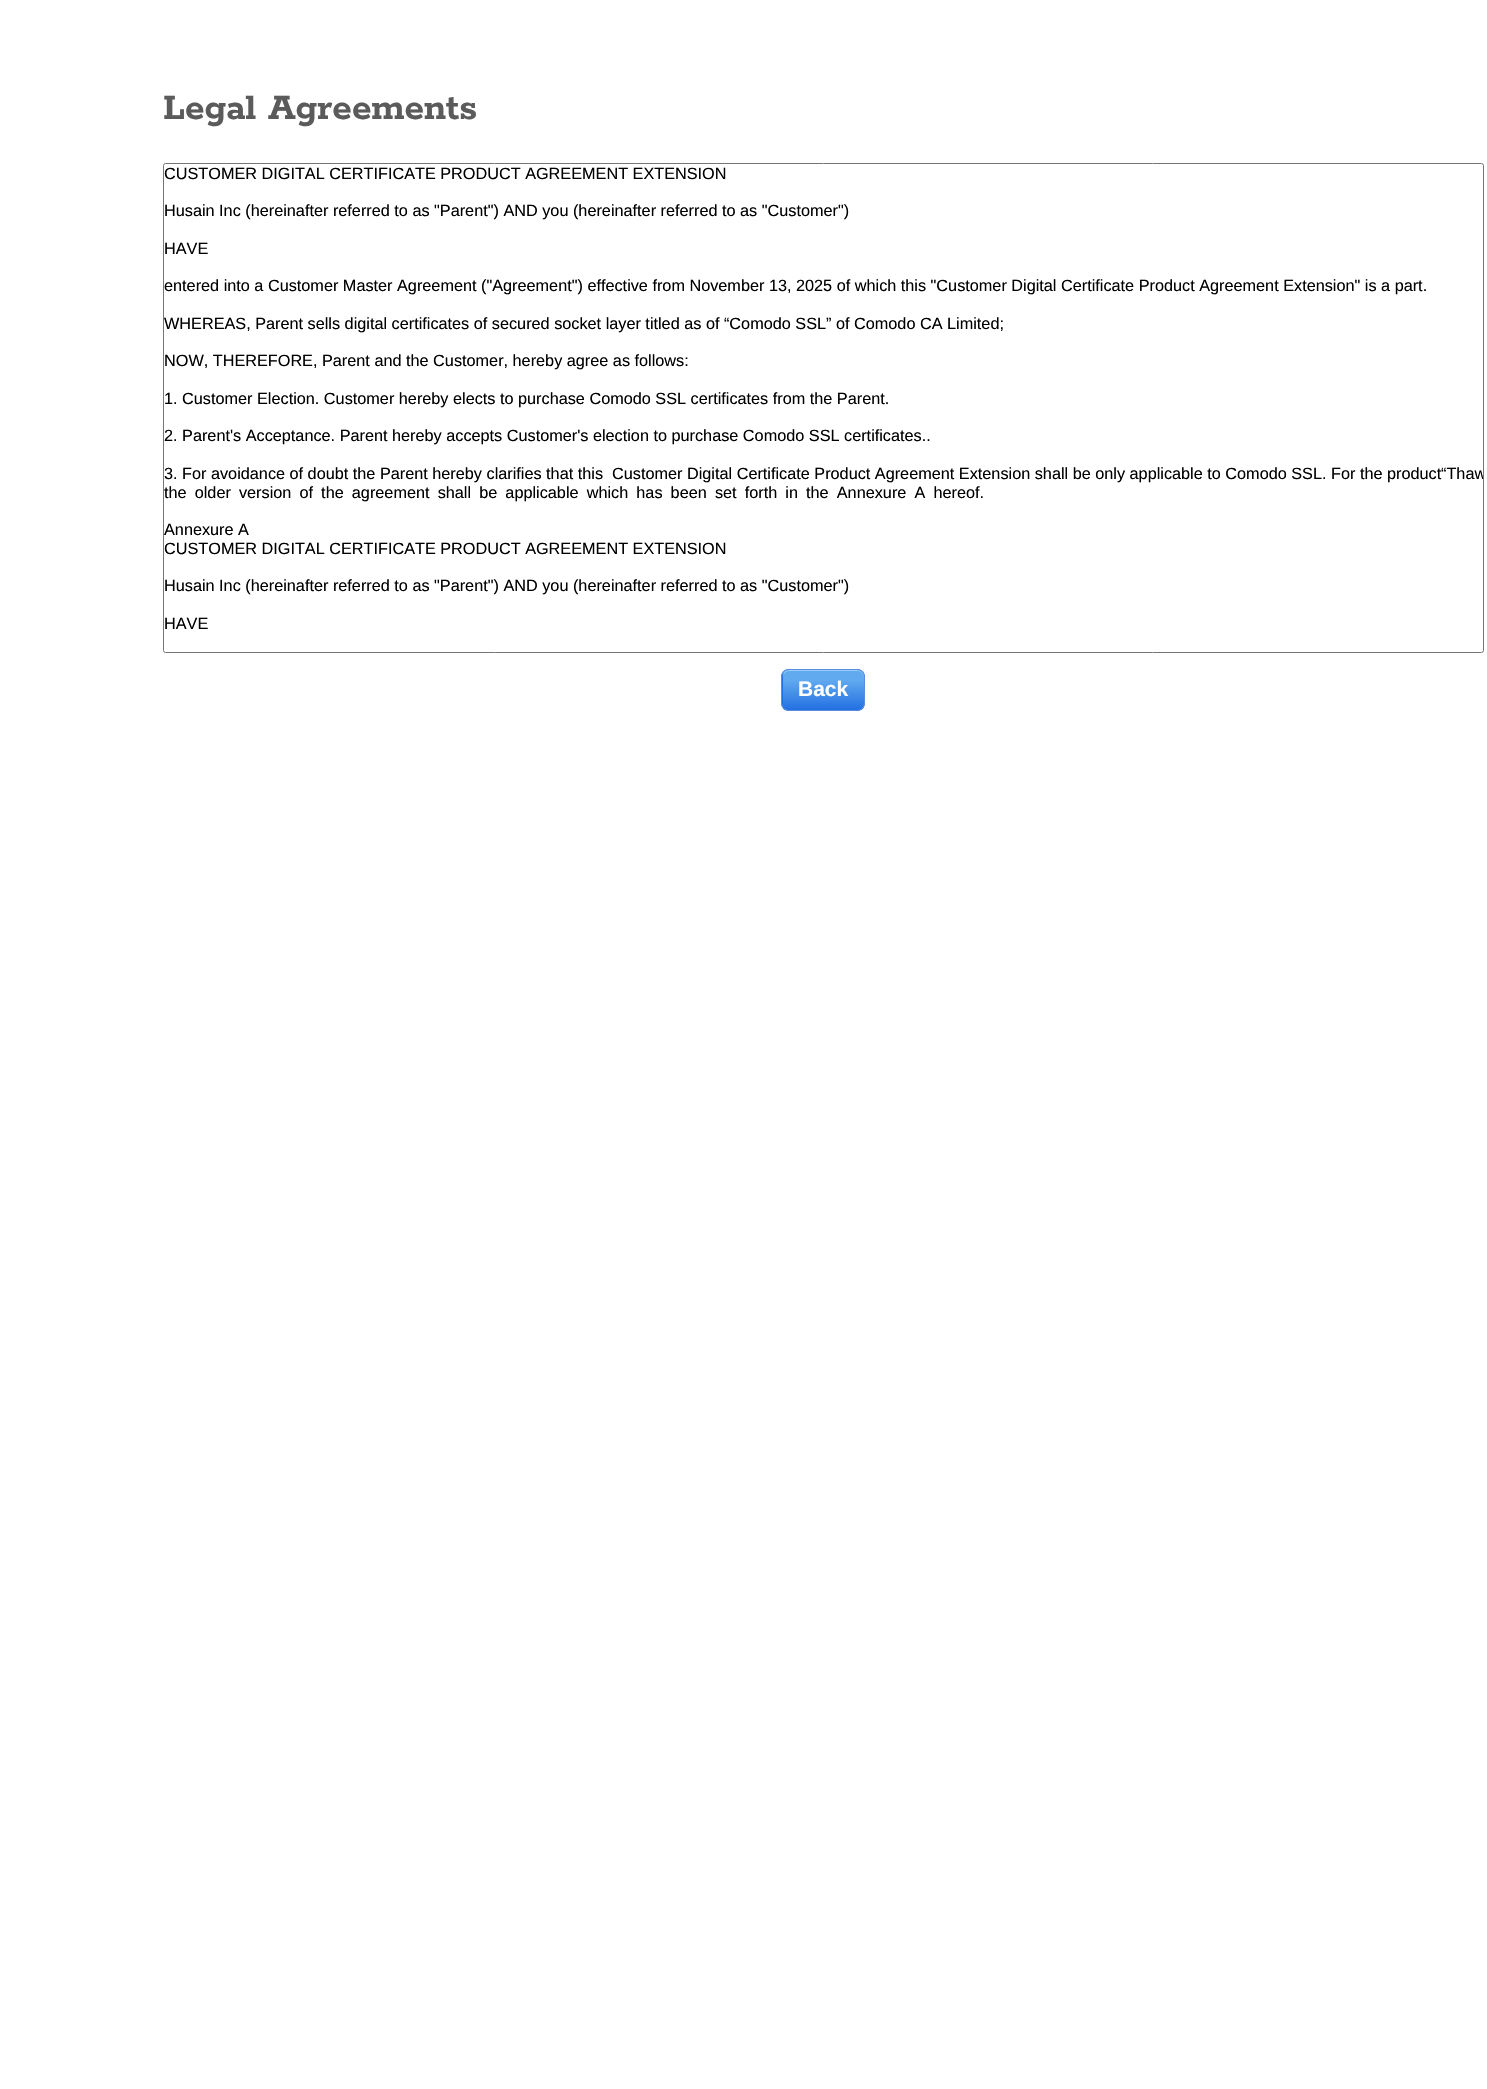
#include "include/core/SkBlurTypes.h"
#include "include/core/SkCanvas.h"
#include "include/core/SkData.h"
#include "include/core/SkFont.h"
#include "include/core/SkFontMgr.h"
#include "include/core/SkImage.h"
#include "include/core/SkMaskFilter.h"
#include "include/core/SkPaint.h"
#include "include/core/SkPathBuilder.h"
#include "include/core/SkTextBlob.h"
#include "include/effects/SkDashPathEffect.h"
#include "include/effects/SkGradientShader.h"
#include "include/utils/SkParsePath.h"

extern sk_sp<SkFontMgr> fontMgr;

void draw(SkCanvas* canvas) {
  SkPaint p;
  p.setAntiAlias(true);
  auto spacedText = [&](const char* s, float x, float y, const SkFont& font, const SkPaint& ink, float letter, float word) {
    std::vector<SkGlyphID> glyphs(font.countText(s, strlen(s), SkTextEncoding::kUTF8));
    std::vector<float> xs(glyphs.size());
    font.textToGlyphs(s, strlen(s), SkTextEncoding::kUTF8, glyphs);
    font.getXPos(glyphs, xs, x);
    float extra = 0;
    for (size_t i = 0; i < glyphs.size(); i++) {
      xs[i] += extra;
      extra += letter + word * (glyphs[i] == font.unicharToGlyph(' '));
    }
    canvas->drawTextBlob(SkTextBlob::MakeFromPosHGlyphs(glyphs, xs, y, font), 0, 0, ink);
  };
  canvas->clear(SK_ColorWHITE);
  p.setStyle(SkPaint::kStroke_Style);
  p.setStrokeWidth(1);
  p.setColor(SkColorSetRGB(118, 118, 118));
  canvas->drawRoundRect(SkRect::MakeLTRB(163.5f, 163.5f, 1483.5f, 652.5f), 2, 2, p);
  p.setStyle(SkPaint::kFill_Style);
  p.setColor(SkColorSetRGB(35, 111, 226));
  canvas->drawRoundRect(SkRect::MakeLTRB(781, 669, 865, 711), 8, 8, p);
  canvas->save();
  canvas->clipPath(SkPathBuilder().moveTo(789, 669).lineTo(857, 669).cubicTo(861.5f, 669, 865, 672.5f, 865, 677).lineTo(865, 703).cubicTo(865, 707.5f, 861.5f, 711, 857, 711).lineTo(789, 711).cubicTo(784.5f, 711, 781, 707.5f, 781, 703).lineTo(781, 677).cubicTo(781, 672.5f, 784.5f, 669, 789, 669).close().detach(), true);
  {
    const SkColor colors[] = {SkColorSetRGB(97, 170, 239), SkColorSetRGB(97, 170, 239), SkColorSetRGB(35, 111, 226)};
    const float stops[] = {0, 0.25f, 1};
    const SkPoint ends[] = {{823, 670}, {823, 710}};
    p.setShader(SkGradientShader::MakeLinear(ends, colors, stops, 3, SkTileMode::kClamp));
    p.setAlpha(255);
  }
  canvas->drawRect(SkRect::MakeLTRB(783, 670, 864, 710), p);
  canvas->restore();
  p.setShader(nullptr);
  p.setColor(SkColorSetRGB(154, 205, 249));
  canvas->drawPath(SkPathBuilder().moveTo(789, 671).lineTo(858, 671).cubicTo(861, 671, 864, 674, 864, 678).lineTo(864, 676).cubicTo(864, 673, 861, 670, 858, 670).lineTo(789, 670).cubicTo(787, 670, 784, 671, 784, 674).cubicTo(785, 672, 787, 671, 789, 671).close().detach(), p);
  p.setStyle(SkPaint::kStroke_Style);
  p.setColor(SkColorSetRGB(90, 141, 223));
  canvas->drawRoundRect(SkRect::MakeLTRB(781.5f, 669.5f, 864.5f, 710.5f), 7.5f, 7.5f, p);
  SkFont font1(fontMgr->matchFamilyStyle("Rokkitt", SkFontStyle::Bold()), 40);
  font1.setSubpixel(true);
  p.setStyle(SkPaint::kFill_Style);
  p.setColor(SkColorSetRGB(91, 91, 91));
  canvas->drawString("Legal Agreements", 163, 119, font1, p);
  SkFont font2(fontMgr->matchFamilyStyle("Liberation Sans", SkFontStyle::Normal()), 16.25f);
  font2.setSubpixel(true);
  p.setColor(SK_ColorBLACK);
  canvas->drawString("CUSTOMER DIGITAL CERTIFICATE PRODUCT AGREEMENT EXTENSION", 164, 179, font2, p);
  canvas->drawString("Husain Inc (hereinafter referred to as \"Parent\") AND you (hereinafter referred to as \"Customer\")", 164, 216, font2, p);
  canvas->drawString("HAVE", 164, 254, font2, p);
  canvas->drawString("entered into a Customer Master Agreement (\"Agreement\") effective from November 13, 2025 of which this \"Customer Digital Certificate Product Agreement Extension\" is a part.", 164, 291, font2, p);
  canvas->drawString("WHEREAS, Parent sells digital certificates of secured socket layer titled as of “Comodo SSL” of Comodo CA Limited;", 164, 329, font2, p);
  canvas->drawString("NOW, THEREFORE, Parent and the Customer, hereby agree as follows:", 164, 366, font2, p);
  canvas->drawString("1. Customer Election. Customer hereby elects to purchase Comodo SSL certificates from the Parent.", 164, 404, font2, p);
  canvas->drawString("2. Parent's Acceptance. Parent hereby accepts Customer's election to purchase Comodo SSL certificates..", 164, 441, font2, p);
  canvas->drawString("3. For avoidance of doubt the Parent hereby clarifies that this  Customer Digital Certificate Product Agreement Extension shall be only applicable to Comodo SSL. For the product", 164, 479, font2, p);
  canvas->save();
  canvas->clipRect(SkRect::MakeLTRB(164, 164, 1483, 651));
  canvas->drawString("“Thaw", 1441, 479, font2, p);
  canvas->restore();
  spacedText("the older version of the agreement shall be applicable which has been set forth in the Annexure A hereof.", 164, 498, font2, p, 0, 3.6f);
  canvas->drawString("Annexure A", 164, 535, font2, p);
  canvas->drawString("CUSTOMER DIGITAL CERTIFICATE PRODUCT AGREEMENT EXTENSION", 164, 554, font2, p);
  canvas->drawString("Husain Inc (hereinafter referred to as \"Parent\") AND you (hereinafter referred to as \"Customer\")", 164, 591, font2, p);
  canvas->drawString("HAVE", 164, 629, font2, p);
  SkFont font3(fontMgr->matchFamilyStyle("Liberation Sans", SkFontStyle::Bold()), 21);
  font3.setSubpixel(true);
  p.setColor(SK_ColorWHITE);
  canvas->drawString("Back", 798, 696, font3, p);
}
